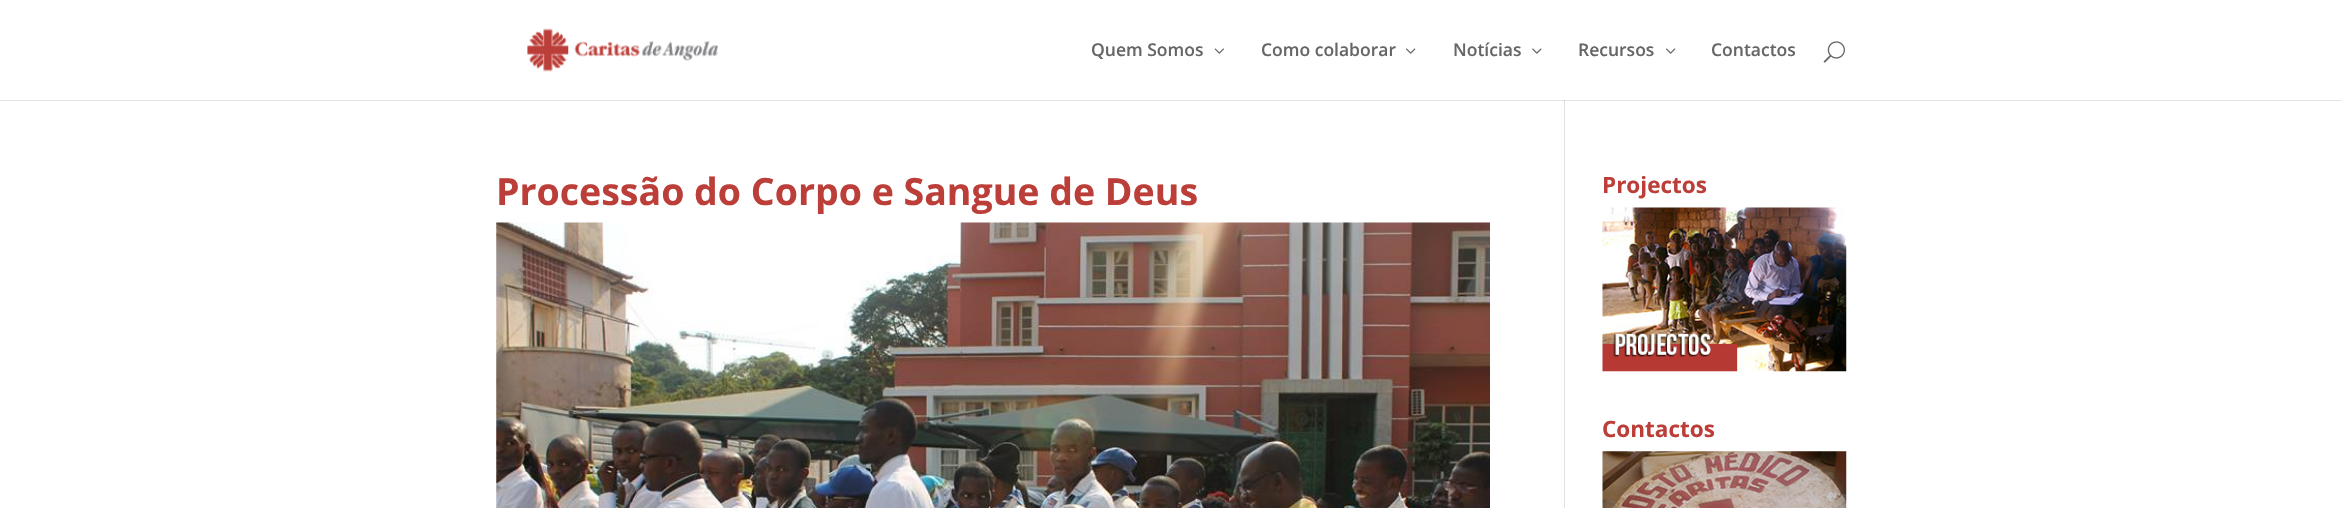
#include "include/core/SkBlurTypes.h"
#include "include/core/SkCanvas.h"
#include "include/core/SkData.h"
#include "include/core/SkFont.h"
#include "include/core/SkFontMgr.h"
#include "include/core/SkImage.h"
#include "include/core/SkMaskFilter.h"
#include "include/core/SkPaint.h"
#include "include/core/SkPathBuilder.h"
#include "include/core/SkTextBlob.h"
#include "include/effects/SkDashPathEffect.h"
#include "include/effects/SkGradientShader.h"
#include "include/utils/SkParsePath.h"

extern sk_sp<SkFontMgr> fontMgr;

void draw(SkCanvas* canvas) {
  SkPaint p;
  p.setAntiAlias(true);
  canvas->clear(SK_ColorWHITE);
  p.setColor(SkColorSetRGB(226, 226, 226));
  canvas->drawRect(SkRect::MakeLTRB(1564, 100, 1565, 508), p);
  p.setColor(SkColorSetARGB(26, 0, 0, 0));
  canvas->drawPath(SkPathBuilder().moveTo(0, 100).lineTo(0, 101).lineTo(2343, 101).lineTo(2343, 1).lineTo(2342, 1).lineTo(2342, 100).close().detach(), p);
  canvas->drawImageRect(SkImages::DeferredFromEncodedData(SkData::MakeFromFileName("images/1.png")), SkRect::MakeLTRB(527, 28, 718, 72), SkSamplingOptions());
  canvas->drawImageRect(SkImages::DeferredFromEncodedData(SkData::MakeFromFileName("images/2.png")), SkRect::MakeLTRB(1214, 48, 1224, 54), SkSamplingOptions());
  canvas->drawImageRect(SkImages::DeferredFromEncodedData(SkData::MakeFromFileName("images/3.png")), SkRect::MakeLTRB(1406, 48, 1416, 54), SkSamplingOptions());
  canvas->drawImageRect(SkImages::DeferredFromEncodedData(SkData::MakeFromFileName("images/4.png")), SkRect::MakeLTRB(1532, 48, 1542, 54), SkSamplingOptions());
  canvas->drawImageRect(SkImages::DeferredFromEncodedData(SkData::MakeFromFileName("images/3.png")), SkRect::MakeLTRB(1666, 48, 1676, 54), SkSamplingOptions());
  canvas->drawImageRect(SkImages::DeferredFromEncodedData(SkData::MakeFromFileName("images/5.png")), SkRect::MakeLTRB(1823, 41, 1845, 63), SkSamplingOptions());
  canvas->drawImageRect(SkImages::DeferredFromEncodedData(SkData::MakeFromFileName("images/6.png")), SkRect::MakeLTRB(496, 222, 1490, 508), SkSamplingOptions());
  canvas->drawImageRect(SkImages::DeferredFromEncodedData(SkData::MakeFromFileName("images/7.png")), SkRect::MakeLTRB(1602, 207, 1847, 372), SkSamplingOptions());
  canvas->drawImageRect(SkImages::DeferredFromEncodedData(SkData::MakeFromFileName("images/8.png")), SkRect::MakeLTRB(1602, 451, 1847, 508), SkSamplingOptions());
  SkFont font1(fontMgr->matchFamilyStyle("Open Sans", SkFontStyle(600, SkFontStyle::kNormal_Width, SkFontStyle::kUpright_Slant)), 17.5f);
  font1.setSubpixel(true);
  p.setColor(SkColorSetRGB(102, 102, 102));
  canvas->drawString("Quem Somos", 1091, 56, font1, p);
  canvas->drawString("Como colaborar", 1261, 56, font1, p);
  canvas->drawString("Notícias", 1453, 56, font1, p);
  canvas->drawString("Recursos", 1578, 56, font1, p);
  canvas->drawString("Contactos", 1711, 56, font1, p);
  SkFont font2(fontMgr->matchFamilyStyle("Open Sans", SkFontStyle::Bold()), 37.5f);
  font2.setSubpixel(true);
  p.setColor(SkColorSetRGB(188, 62, 57));
  canvas->drawString("Processão do Corpo e Sangue de Deus", 496, 205, font2, p);
  SkFont font3(fontMgr->matchFamilyStyle("Open Sans", SkFontStyle::Bold()), 22.5f);
  font3.setSubpixel(true);
  canvas->drawString("Projectos", 1602, 193, font3, p);
  canvas->drawString("Contactos", 1602, 437, font3, p);
}
